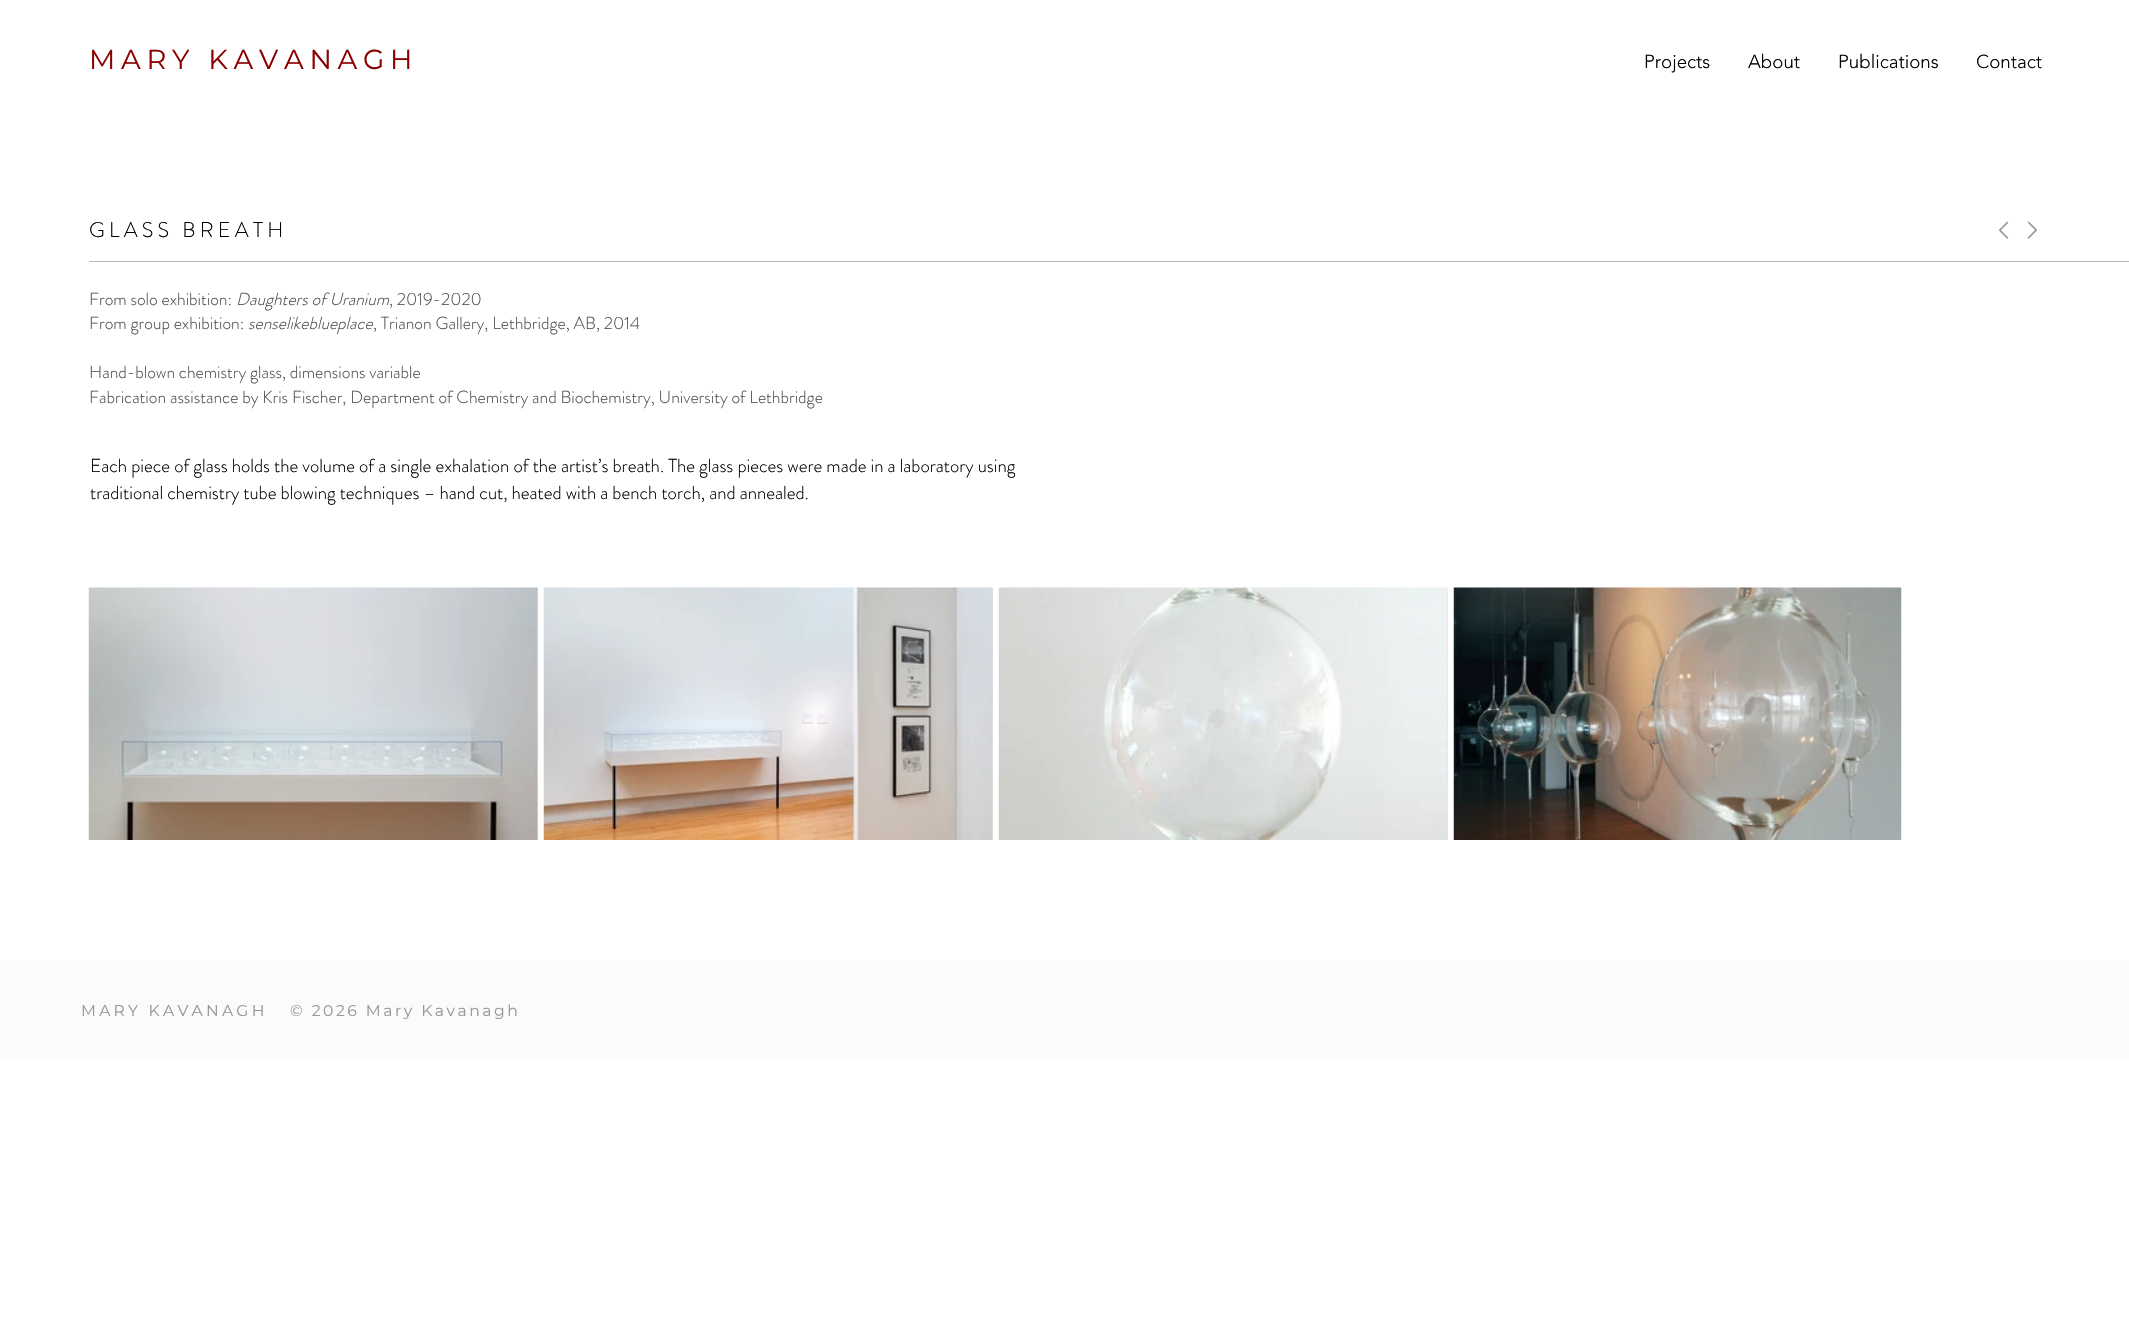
#include "include/core/SkBlurTypes.h"
#include "include/core/SkCanvas.h"
#include "include/core/SkData.h"
#include "include/core/SkFont.h"
#include "include/core/SkFontMgr.h"
#include "include/core/SkImage.h"
#include "include/core/SkMaskFilter.h"
#include "include/core/SkPaint.h"
#include "include/core/SkPathBuilder.h"
#include "include/core/SkTextBlob.h"
#include "include/effects/SkDashPathEffect.h"
#include "include/effects/SkGradientShader.h"
#include "include/utils/SkParsePath.h"

extern sk_sp<SkFontMgr> fontMgr;

void draw(SkCanvas* canvas) {
  SkPaint p;
  p.setAntiAlias(true);
  auto spacedText = [&](const char* s, float x, float y, const SkFont& font, const SkPaint& ink, float letter, float word) {
    std::vector<SkGlyphID> glyphs(font.countText(s, strlen(s), SkTextEncoding::kUTF8));
    std::vector<float> xs(glyphs.size());
    font.textToGlyphs(s, strlen(s), SkTextEncoding::kUTF8, glyphs);
    font.getXPos(glyphs, xs, x);
    float extra = 0;
    for (size_t i = 0; i < glyphs.size(); i++) {
      xs[i] += extra;
      extra += letter + word * (glyphs[i] == font.unicharToGlyph(' '));
    }
    canvas->drawTextBlob(SkTextBlob::MakeFromPosHGlyphs(glyphs, xs, y, font), 0, 0, ink);
  };
  canvas->clear(SK_ColorWHITE);
  canvas->drawImageRect(SkImages::DeferredFromEncodedData(SkData::MakeFromFileName("images/1.png")), SkRect::MakeLTRB(1999, 221, 2009, 239), SkSamplingOptions());
  canvas->drawImageRect(SkImages::DeferredFromEncodedData(SkData::MakeFromFileName("images/2.png")), SkRect::MakeLTRB(2027, 221, 2037, 239), SkSamplingOptions());
  p.setColor(SkColorSetRGB(183, 183, 191));
  canvas->drawRect(SkRect::MakeLTRB(89, 261, 2129, 262), p);
  p.setColor(SkColorSetRGB(227, 227, 227));
  canvas->drawRect(SkRect::MakeLTRB(537, 588, 538, 840), p);
  canvas->drawImageRect(SkImages::DeferredFromEncodedData(SkData::MakeFromFileName("images/3.png")), SkRect::MakeLTRB(88, 587, 538, 840), SkSamplingOptions());
  canvas->drawRect(SkRect::MakeLTRB(992, 588, 993, 840), p);
  canvas->drawImageRect(SkImages::DeferredFromEncodedData(SkData::MakeFromFileName("images/4.png")), SkRect::MakeLTRB(543, 587, 993, 840), SkSamplingOptions());
  canvas->drawRect(SkRect::MakeLTRB(1447, 588, 1448, 840), p);
  canvas->drawImageRect(SkImages::DeferredFromEncodedData(SkData::MakeFromFileName("images/5.png")), SkRect::MakeLTRB(998, 587, 1448, 840), SkSamplingOptions());
  canvas->drawImageRect(SkImages::DeferredFromEncodedData(SkData::MakeFromFileName("images/6.png")), SkRect::MakeLTRB(1453, 587, 1902, 840), SkSamplingOptions());
  p.setColor(SkColorSetRGB(251, 251, 251));
  canvas->drawRect(SkRect::MakeLTRB(0, 960, 2129, 1060), p);
  SkFont font1(fontMgr->matchFamilyStyle("Montserrat", SkFontStyle::Normal()), 27.5f);
  font1.setSubpixel(true);
  p.setColor(SkColorSetRGB(139, 0, 0));
  spacedText("MARY KAVANAGH", 89, 69, font1, p, 5.75f, 0);
  SkFont font2(fontMgr->matchFamilyStyle("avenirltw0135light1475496", SkFontStyle(300, SkFontStyle::kNormal_Width, SkFontStyle::kUpright_Slant)), 18.75f);
  font2.setSubpixel(true);
  p.setColor(SK_ColorBLACK);
  canvas->drawString("Projects", 1644, 68, font2, p);
  canvas->drawString("About", 1748, 68, font2, p);
  canvas->drawString("Publications", 1838, 68, font2, p);
  canvas->drawString("Contact", 1976, 68, font2, p);
  SkFont font3(fontMgr->matchFamilyStyle("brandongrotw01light", SkFontStyle(300, SkFontStyle::kNormal_Width, SkFontStyle::kUpright_Slant)), 21.25f);
  font3.setSubpixel(true);
  spacedText("GLASS BREATH", 89, 237, font3, p, 4.25f, 0);
  SkFont font4(fontMgr->matchFamilyStyle("brandongrotw01light", SkFontStyle(300, SkFontStyle::kNormal_Width, SkFontStyle::kUpright_Slant)), 17.5f);
  font4.setSubpixel(true);
  p.setColor(SkColorSetRGB(79, 79, 79));
  canvas->drawString("From solo exhibition:", 89, 305, font4, p);
  SkFont font5(fontMgr->matchFamilyStyle("brandongrotw01light", SkFontStyle(300, SkFontStyle::kNormal_Width, SkFontStyle::kItalic_Slant)), 17.5f);
  font5.setSubpixel(true);
  canvas->drawString("Daughters of Uranium", 236, 305, font5, p);
  canvas->drawString(", 2019-2020", 389, 305, font4, p);
  canvas->drawString("From group exhibition:", 89, 329, font4, p);
  canvas->drawString("senselikeblueplace", 248, 329, font5, p);
  canvas->drawString(", Trianon Gallery, Lethbridge, AB, 2014", 373, 329, font4, p);
  canvas->drawString("Hand-blown chemistry glass, dimensions variable", 89, 378, font4, p);
  canvas->drawString("Fabrication assistance by Kris Fischer, Department of Chemistry and Biochemistry, University of Lethbridge", 89, 403, font4, p);
  SkFont font6(fontMgr->matchFamilyStyle("brandongrotw01light", SkFontStyle(300, SkFontStyle::kNormal_Width, SkFontStyle::kUpright_Slant)), 18.75f);
  font6.setSubpixel(true);
  p.setColor(SK_ColorBLACK);
  canvas->drawString("Each piece of glass holds the volume of a single exhalation of the artist’s breath. The glass pieces were made in a laboratory using", 90, 472, font6, p);
  canvas->drawString("traditional chemistry tube blowing techniques – hand cut, heated with a bench torch, and annealed.", 90, 499, font6, p);
  SkFont font7(fontMgr->matchFamilyStyle("Montserrat", SkFontStyle::Normal()), 15.6f);
  font7.setSubpixel(true);
  p.setColor(SkColorSetRGB(151, 151, 151));
  spacedText("MARY KAVANAGH", 81, 1016, font7, p, 3.25f, 0);
  spacedText("© 2026 Mary Kavanagh", 290, 1016, font7, p, 2.5f, 0);
}
